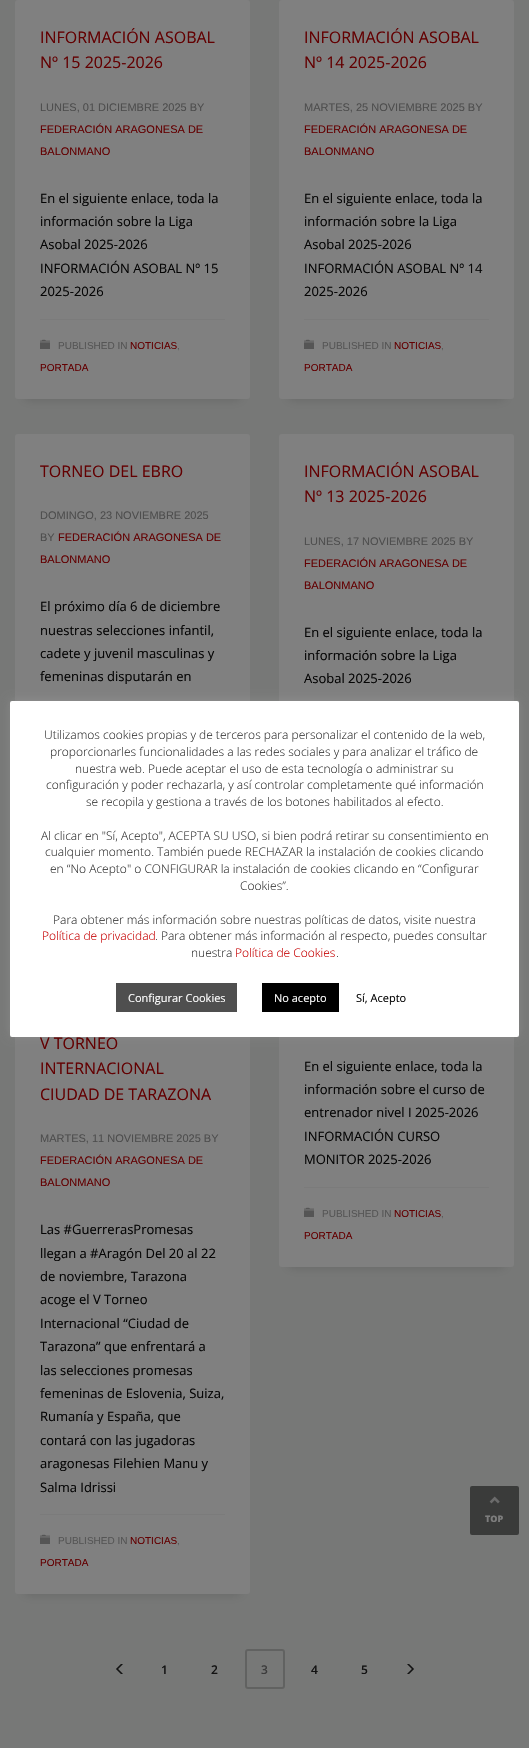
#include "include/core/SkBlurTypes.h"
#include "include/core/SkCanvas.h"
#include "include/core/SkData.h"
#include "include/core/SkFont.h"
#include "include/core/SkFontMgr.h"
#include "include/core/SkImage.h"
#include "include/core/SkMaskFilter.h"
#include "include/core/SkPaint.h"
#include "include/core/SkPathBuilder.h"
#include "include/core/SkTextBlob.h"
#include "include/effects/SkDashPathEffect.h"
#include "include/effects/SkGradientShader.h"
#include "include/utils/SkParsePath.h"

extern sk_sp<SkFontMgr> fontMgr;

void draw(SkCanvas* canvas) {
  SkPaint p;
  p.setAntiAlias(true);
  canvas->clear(SkColorSetRGB(119, 120, 119));
  p.setColor(SkColorSetARGB(38, 0, 0, 0));
  p.setMaskFilter(SkMaskFilter::MakeBlur(kNormal_SkBlurStyle, 5));
  canvas->drawRect(SkRect::MakeLTRB(25, 20, 240, 399), p);
  p.setMaskFilter(nullptr);
  p.setColor(SkColorSetRGB(128, 128, 128));
  canvas->drawRoundRect(SkRect::MakeLTRB(15, 0, 250, 399), 3, 3, p);
  p.setColor(SkColorSetRGB(123, 123, 123));
  canvas->drawRect(SkRect::MakeLTRB(40, 319, 225, 320), p);
  canvas->drawImageRect(SkImages::DeferredFromEncodedData(SkData::MakeFromFileName("images/1.png")), SkRect::MakeLTRB(40, 339, 50, 349), SkSamplingOptions());
  p.setColor(SkColorSetARGB(38, 0, 0, 0));
  p.setMaskFilter(SkMaskFilter::MakeBlur(kNormal_SkBlurStyle, 5));
  canvas->drawRect(SkRect::MakeLTRB(289, 20, 504, 399), p);
  p.setMaskFilter(nullptr);
  p.setColor(SkColorSetRGB(128, 128, 128));
  canvas->drawRoundRect(SkRect::MakeLTRB(279, 0, 514, 399), 3, 3, p);
  p.setColor(SkColorSetRGB(123, 123, 123));
  canvas->drawRect(SkRect::MakeLTRB(304, 319, 489, 320), p);
  canvas->drawImageRect(SkImages::DeferredFromEncodedData(SkData::MakeFromFileName("images/1.png")), SkRect::MakeLTRB(304, 339, 314, 349), SkSamplingOptions());
  p.setColor(SkColorSetRGB(128, 128, 128));
  canvas->drawRoundRect(SkRect::MakeLTRB(15, 434, 250, 971), 3, 3, p);
  canvas->drawRoundRect(SkRect::MakeLTRB(279, 434, 514, 833), 3, 3, p);
  p.setColor(SkColorSetARGB(38, 0, 0, 0));
  p.setMaskFilter(SkMaskFilter::MakeBlur(kNormal_SkBlurStyle, 5));
  canvas->drawRect(SkRect::MakeLTRB(25, 1026, 240, 1594), p);
  p.setMaskFilter(nullptr);
  p.setColor(SkColorSetRGB(128, 128, 128));
  canvas->drawRoundRect(SkRect::MakeLTRB(15, 1006, 250, 1594), 3, 3, p);
  p.setColor(SkColorSetRGB(123, 123, 123));
  canvas->drawRect(SkRect::MakeLTRB(40, 1514, 225, 1515), p);
  canvas->drawImageRect(SkImages::DeferredFromEncodedData(SkData::MakeFromFileName("images/1.png")), SkRect::MakeLTRB(40, 1534, 50, 1544), SkSamplingOptions());
  p.setColor(SkColorSetARGB(38, 0, 0, 0));
  p.setMaskFilter(SkMaskFilter::MakeBlur(kNormal_SkBlurStyle, 5));
  canvas->drawRect(SkRect::MakeLTRB(289, 888, 504, 1267), p);
  p.setMaskFilter(nullptr);
  p.setColor(SkColorSetRGB(128, 128, 128));
  canvas->drawRoundRect(SkRect::MakeLTRB(279, 868, 514, 1267), 3, 3, p);
  p.setColor(SkColorSetRGB(123, 123, 123));
  canvas->drawRect(SkRect::MakeLTRB(304, 1187, 489, 1188), p);
  canvas->drawImageRect(SkImages::DeferredFromEncodedData(SkData::MakeFromFileName("images/1.png")), SkRect::MakeLTRB(304, 1207, 314, 1217), SkSamplingOptions());
  canvas->drawImageRect(SkImages::DeferredFromEncodedData(SkData::MakeFromFileName("images/2.png")), SkRect::MakeLTRB(116, 1664, 123, 1674), SkSamplingOptions());
  p.setStyle(SkPaint::kStroke_Style);
  p.setStrokeWidth(2);
  p.setColor(SkColorSetRGB(97, 98, 97));
  canvas->drawRoundRect(SkRect::MakeLTRB(246, 1650, 284, 1688), 2, 2, p);
  canvas->drawImageRect(SkImages::DeferredFromEncodedData(SkData::MakeFromFileName("images/3.png")), SkRect::MakeLTRB(407, 1664, 414, 1674), SkSamplingOptions());
  p.setStyle(SkPaint::kFill_Style);
  p.setColor(SkColorSetARGB(77, 172, 171, 171));
  p.setMaskFilter(SkMaskFilter::MakeBlur(kNormal_SkBlurStyle, 5));
  canvas->drawRoundRect(SkRect::MakeLTRB(10, 700, 519, 1036), 2, 2, p);
  p.setMaskFilter(nullptr);
  p.setColor(SK_ColorWHITE);
  canvas->drawRoundRect(SkRect::MakeLTRB(10, 701, 519, 1037), 2, 2, p);
  p.setColor(SkColorSetRGB(79, 79, 79));
  canvas->drawRect(SkRect::MakeLTRB(116, 983, 237, 1012), p);
  p.setColor(SK_ColorBLACK);
  canvas->drawRect(SkRect::MakeLTRB(262, 983, 339, 1012), p);
  p.setColor(SkColorSetRGB(58, 59, 58));
  canvas->drawRoundRect(SkRect::MakeLTRB(470, 1486, 519, 1535), 2, 2, p);
  canvas->drawImageRect(SkImages::DeferredFromEncodedData(SkData::MakeFromFileName("images/4.png")), SkRect::MakeLTRB(489, 1496, 500, 1504), SkSamplingOptions());
  SkFont font1(fontMgr->matchFamilyStyle("Open Sans", SkFontStyle::Normal()), 16);
  font1.setSubpixel(true);
  p.setColor(SkColorSetRGB(99, 0, 1));
  canvas->drawString("INFORMACIÓN ASOBAL", 40, 43, font1, p);
  canvas->drawString("Nº 15 2025-2026", 40, 68, font1, p);
  SkFont font2(fontMgr->matchFamilyStyle("Liberation Sans", SkFontStyle::Normal()), 11);
  font2.setSubpixel(true);
  p.setColor(SkColorSetRGB(77, 77, 77));
  canvas->drawString("LUNES, 01 DICIEMBRE 2025 BY", 40, 111, font2, p);
  p.setColor(SkColorSetRGB(99, 0, 1));
  canvas->drawString("FEDERACIÓN ARAGONESA DE", 40, 133, font2, p);
  canvas->drawString("BALONMANO", 40, 155, font2, p);
  SkFont font3(fontMgr->matchFamilyStyle("Open Sans", SkFontStyle::Normal()), 13);
  font3.setSubpixel(true);
  p.setColor(SkColorSetRGB(5, 5, 5));
  canvas->drawString("En el siguiente enlace, toda la", 40, 203, font3, p);
  canvas->drawString("información sobre la Liga", 40, 226, font3, p);
  canvas->drawString("Asobal 2025-2026", 40, 249, font3, p);
  canvas->drawString("INFORMACIÓN ASOBAL Nº 15", 40, 273, font3, p);
  canvas->drawString("2025-2026", 40, 296, font3, p);
  SkFont font4(fontMgr->matchFamilyStyle("Liberation Sans", SkFontStyle::Normal()), 10);
  font4.setSubpixel(true);
  p.setColor(SkColorSetRGB(85, 85, 85));
  canvas->drawString("PUBLISHED IN", 58, 349, font4, p);
  p.setColor(SkColorSetRGB(99, 0, 1));
  canvas->drawString("NOTICIAS", 130, 349, font4, p);
  p.setColor(SkColorSetRGB(85, 85, 85));
  canvas->drawString(",", 177, 349, font4, p);
  p.setColor(SkColorSetRGB(99, 0, 1));
  canvas->drawString("PORTADA", 40, 371, font4, p);
  canvas->drawString("INFORMACIÓN ASOBAL", 304, 43, font1, p);
  canvas->drawString("Nº 14 2025-2026", 304, 68, font1, p);
  p.setColor(SkColorSetRGB(77, 77, 77));
  canvas->drawString("MARTES, 25 NOVIEMBRE 2025 BY", 304, 111, font2, p);
  p.setColor(SkColorSetRGB(99, 0, 1));
  canvas->drawString("FEDERACIÓN ARAGONESA DE", 304, 133, font2, p);
  canvas->drawString("BALONMANO", 304, 155, font2, p);
  p.setColor(SkColorSetRGB(5, 5, 5));
  canvas->drawString("En el siguiente enlace, toda la", 304, 203, font3, p);
  canvas->drawString("información sobre la Liga", 304, 226, font3, p);
  canvas->drawString("Asobal 2025-2026", 304, 249, font3, p);
  canvas->drawString("INFORMACIÓN ASOBAL Nº 14", 304, 273, font3, p);
  canvas->drawString("2025-2026", 304, 296, font3, p);
  p.setColor(SkColorSetRGB(85, 85, 85));
  canvas->drawString("PUBLISHED IN", 322, 349, font4, p);
  p.setColor(SkColorSetRGB(99, 0, 1));
  canvas->drawString("NOTICIAS", 394, 349, font4, p);
  p.setColor(SkColorSetRGB(85, 85, 85));
  canvas->drawString(",", 441, 349, font4, p);
  p.setColor(SkColorSetRGB(99, 0, 1));
  canvas->drawString("PORTADA", 304, 371, font4, p);
  canvas->drawString("TORNEO DEL EBRO", 40, 477, font1, p);
  p.setColor(SkColorSetRGB(77, 77, 77));
  canvas->drawString("DOMINGO, 23 NOVIEMBRE 2025", 40, 519, font2, p);
  canvas->drawString("BY", 40, 541, font2, p);
  p.setColor(SkColorSetRGB(99, 0, 1));
  canvas->drawString("FEDERACIÓN ARAGONESA DE", 58, 541, font2, p);
  canvas->drawString("BALONMANO", 40, 563, font2, p);
  p.setColor(SkColorSetRGB(5, 5, 5));
  canvas->drawString("El próximo día 6 de diciembre", 40, 611, font3, p);
  canvas->drawString("nuestras selecciones infantil,", 40, 635, font3, p);
  canvas->drawString("cadete y juvenil masculinas y", 40, 658, font3, p);
  canvas->drawString("femeninas disputarán en", 40, 681, font3, p);
  p.setColor(SkColorSetRGB(99, 0, 1));
  canvas->drawString("INFORMACIÓN ASOBAL", 304, 477, font1, p);
  canvas->drawString("Nº 13 2025-2026", 304, 502, font1, p);
  p.setColor(SkColorSetRGB(77, 77, 77));
  canvas->drawString("LUNES, 17 NOVIEMBRE 2025 BY", 304, 545, font2, p);
  p.setColor(SkColorSetRGB(99, 0, 1));
  canvas->drawString("FEDERACIÓN ARAGONESA DE", 304, 567, font2, p);
  canvas->drawString("BALONMANO", 304, 589, font2, p);
  p.setColor(SkColorSetRGB(5, 5, 5));
  canvas->drawString("En el siguiente enlace, toda la", 304, 637, font3, p);
  canvas->drawString("información sobre la Liga", 304, 660, font3, p);
  canvas->drawString("Asobal 2025-2026", 304, 683, font3, p);
  p.setColor(SkColorSetRGB(99, 0, 1));
  canvas->drawString("V TORNEO", 40, 1049, font1, p);
  canvas->drawString("INTERNACIONAL", 40, 1074, font1, p);
  canvas->drawString("CIUDAD DE TARAZONA", 40, 1100, font1, p);
  p.setColor(SkColorSetRGB(77, 77, 77));
  canvas->drawString("MARTES, 11 NOVIEMBRE 2025 BY", 40, 1142, font2, p);
  p.setColor(SkColorSetRGB(99, 0, 1));
  canvas->drawString("FEDERACIÓN ARAGONESA DE", 40, 1164, font2, p);
  canvas->drawString("BALONMANO", 40, 1186, font2, p);
  p.setColor(SkColorSetRGB(5, 5, 5));
  canvas->drawString("Las #GuerrerasPromesas", 40, 1234, font3, p);
  canvas->drawString("llegan a #Aragón Del 20 al 22", 40, 1258, font3, p);
  canvas->drawString("de noviembre, Tarazona", 40, 1281, font3, p);
  canvas->drawString("acoge el V Torneo", 40, 1304, font3, p);
  canvas->drawString("Internacional “Ciudad de", 40, 1328, font3, p);
  canvas->drawString("Tarazona” que enfrentará a", 40, 1351, font3, p);
  canvas->drawString("las selecciones promesas", 40, 1375, font3, p);
  canvas->drawString("femeninas de Eslovenia, Suiza,", 40, 1398, font3, p);
  canvas->drawString("Rumanía y España, que", 40, 1421, font3, p);
  canvas->drawString("contará con las jugadoras", 40, 1445, font3, p);
  canvas->drawString("aragonesas Filehien Manu y", 40, 1468, font3, p);
  canvas->drawString("Salma Idrissi", 40, 1492, font3, p);
  p.setColor(SkColorSetRGB(85, 85, 85));
  canvas->drawString("PUBLISHED IN", 58, 1544, font4, p);
  p.setColor(SkColorSetRGB(99, 0, 1));
  canvas->drawString("NOTICIAS", 130, 1544, font4, p);
  p.setColor(SkColorSetRGB(85, 85, 85));
  canvas->drawString(",", 177, 1544, font4, p);
  p.setColor(SkColorSetRGB(99, 0, 1));
  canvas->drawString("PORTADA", 40, 1566, font4, p);
  p.setColor(SkColorSetRGB(5, 5, 5));
  canvas->drawString("En el siguiente enlace, toda la", 304, 1071, font3, p);
  canvas->drawString("información sobre el curso de", 304, 1094, font3, p);
  canvas->drawString("entrenador nivel I 2025-2026", 304, 1117, font3, p);
  canvas->drawString("INFORMACIÓN CURSO", 304, 1141, font3, p);
  canvas->drawString("MONITOR 2025-2026", 304, 1164, font3, p);
  p.setColor(SkColorSetRGB(85, 85, 85));
  canvas->drawString("PUBLISHED IN", 322, 1217, font4, p);
  p.setColor(SkColorSetRGB(99, 0, 1));
  canvas->drawString("NOTICIAS", 394, 1217, font4, p);
  p.setColor(SkColorSetRGB(85, 85, 85));
  canvas->drawString(",", 441, 1217, font4, p);
  p.setColor(SkColorSetRGB(99, 0, 1));
  canvas->drawString("PORTADA", 304, 1239, font4, p);
  SkFont font5(fontMgr->matchFamilyStyle("Open Sans", SkFontStyle(600, SkFontStyle::kNormal_Width, SkFontStyle::kUpright_Slant)), 12);
  font5.setSubpixel(true);
  p.setColor(SkColorSetRGB(18, 18, 18));
  canvas->drawString("1", 161, 1674, font5, p);
  canvas->drawString("2", 211, 1674, font5, p);
  p.setColor(SkColorSetRGB(60, 60, 60));
  canvas->drawString("3", 261, 1674, font5, p);
  p.setColor(SkColorSetRGB(18, 18, 18));
  canvas->drawString("4", 311, 1674, font5, p);
  canvas->drawString("5", 361, 1674, font5, p);
  SkFont font6(fontMgr->matchFamilyStyle("Open Sans", SkFontStyle(300, SkFontStyle::kNormal_Width, SkFontStyle::kUpright_Slant)), 12);
  font6.setSubpixel(true);
  p.setColor(SkColorSetRGB(51, 51, 51));
  canvas->drawString("Utilizamos cookies propias y de terceros para personalizar el contenido de la web,", 44, 739, font6, p);
  canvas->drawString("proporcionarles funcionalidades a las redes sociales y para analizar el tráfico de", 50, 756, font6, p);
  canvas->drawString("nuestra web. Puede aceptar el uso de esta tecnología o administrar su", 75, 773, font6, p);
  canvas->drawString("configuración y poder rechazarla, y así controlar completamente qué información", 46, 789, font6, p);
  canvas->drawString("se recopila y gestiona a través de los botones habilitados al efecto.", 86, 806, font6, p);
  canvas->drawString("Al clicar en \"Sí, Acepto\", ACEPTA SU USO, si bien podrá retirar su consentimiento en", 41, 840, font6, p);
  canvas->drawString("cualquier momento. También puede RECHAZAR la instalación de cookies clicando", 45, 856, font6, p);
  canvas->drawString("en “No Acepto\" o CONFIGURAR la instalación de cookies clicando en “Configurar", 50, 873, font6, p);
  canvas->drawString("Cookies”.", 240, 890, font6, p);
  canvas->drawString("Para obtener más información sobre nuestras políticas de datos, visite nuestra", 53, 924, font6, p);
  p.setColor(SkColorSetRGB(198, 0, 1));
  canvas->drawString("Política de privacidad", 42, 940, font6, p);
  p.setColor(SkColorSetRGB(51, 51, 51));
  canvas->drawString(". Para obtener más información al respecto, puedes consultar", 155, 940, font6, p);
  canvas->drawString("nuestra", 191, 957, font6, p);
  p.setColor(SkColorSetRGB(198, 0, 1));
  canvas->drawString("Política de Cookies", 235, 957, font6, p);
  p.setColor(SkColorSetRGB(51, 51, 51));
  canvas->drawString(".", 336, 957, font6, p);
  SkFont font7(fontMgr->matchFamilyStyle("Open Sans", SkFontStyle::Normal()), 11);
  font7.setSubpixel(true);
  p.setColor(SK_ColorWHITE);
  canvas->drawString("Configurar Cookies", 128, 1002, font7, p);
  canvas->drawString("No acepto", 274, 1002, font7, p);
  p.setColor(SkColorSetRGB(5, 5, 5));
  canvas->drawString("Sí, Acepto", 356, 1002, font7, p);
  SkFont font8(fontMgr->matchFamilyStyle("Open Sans", SkFontStyle(800, SkFontStyle::kNormal_Width, SkFontStyle::kUpright_Slant)), 9);
  font8.setSubpixel(true);
  p.setColor(SkColorSetRGB(125, 125, 125));
  canvas->drawString("TOP", 485, 1522, font8, p);
}
